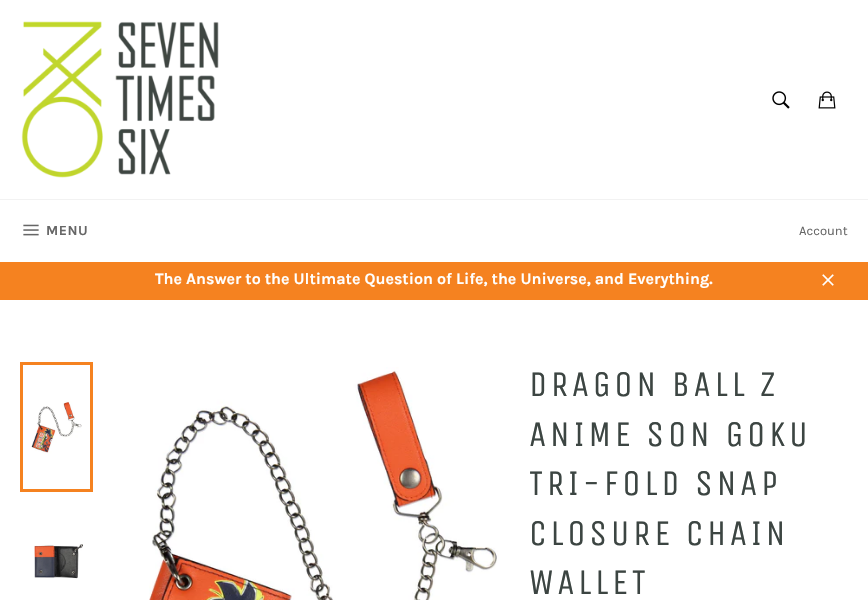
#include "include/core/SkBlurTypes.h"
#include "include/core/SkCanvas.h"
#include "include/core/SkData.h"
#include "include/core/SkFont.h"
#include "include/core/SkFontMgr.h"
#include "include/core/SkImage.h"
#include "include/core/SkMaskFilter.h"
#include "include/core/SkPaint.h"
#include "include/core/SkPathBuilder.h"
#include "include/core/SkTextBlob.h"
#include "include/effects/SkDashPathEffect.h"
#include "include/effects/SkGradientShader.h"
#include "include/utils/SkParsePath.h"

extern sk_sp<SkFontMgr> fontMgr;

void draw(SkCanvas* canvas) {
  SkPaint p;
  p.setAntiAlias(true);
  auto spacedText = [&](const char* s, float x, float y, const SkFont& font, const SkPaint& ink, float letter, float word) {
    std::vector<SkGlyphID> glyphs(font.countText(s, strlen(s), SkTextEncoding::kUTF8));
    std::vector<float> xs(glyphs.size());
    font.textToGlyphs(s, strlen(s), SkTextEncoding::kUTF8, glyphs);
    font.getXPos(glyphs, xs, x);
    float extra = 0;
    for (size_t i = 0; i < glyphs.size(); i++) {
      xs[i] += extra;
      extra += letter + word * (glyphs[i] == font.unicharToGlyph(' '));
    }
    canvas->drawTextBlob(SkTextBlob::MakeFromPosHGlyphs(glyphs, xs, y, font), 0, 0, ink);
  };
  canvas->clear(SK_ColorWHITE);
  canvas->drawImageRect(SkImages::DeferredFromEncodedData(SkData::MakeFromFileName("images/1.png")), SkRect::MakeLTRB(21, 21, 219, 178), SkSamplingOptions());
  canvas->drawImageRect(SkImages::DeferredFromEncodedData(SkData::MakeFromFileName("images/2.png")), SkRect::MakeLTRB(772, 91, 790, 109), SkSamplingOptions());
  canvas->drawImageRect(SkImages::DeferredFromEncodedData(SkData::MakeFromFileName("images/3.png")), SkRect::MakeLTRB(818, 91, 836, 109), SkSamplingOptions());
  p.setColor(SkColorSetRGB(242, 242, 242));
  canvas->drawRect(SkRect::MakeLTRB(0, 199, 868, 200), p);
  canvas->drawImageRect(SkImages::DeferredFromEncodedData(SkData::MakeFromFileName("images/4.png")), SkRect::MakeLTRB(23, 224, 39, 236), SkSamplingOptions());
  p.setColor(SkColorSetRGB(245, 130, 32));
  canvas->drawRect(SkRect::MakeLTRB(0, 262, 868, 300), p);
  canvas->drawImageRect(SkImages::DeferredFromEncodedData(SkData::MakeFromFileName("images/5.png")), SkRect::MakeLTRB(822, 274, 834, 286), SkSamplingOptions());
  canvas->drawImageRect(SkImages::DeferredFromEncodedData(SkData::MakeFromFileName("images/6.png")), SkRect::MakeLTRB(31, 401, 82, 454), SkSamplingOptions());
  p.setStyle(SkPaint::kStroke_Style);
  p.setStrokeWidth(3);
  canvas->drawRect(SkRect::MakeLTRB(21.5f, 363.5f, 91.5f, 490.5f), p);
  canvas->drawImageRect(SkImages::DeferredFromEncodedData(SkData::MakeFromFileName("images/7.png")), SkRect::MakeLTRB(34, 544, 83, 579), SkSamplingOptions());
  canvas->drawImageRect(SkImages::DeferredFromEncodedData(SkData::MakeFromFileName("images/8.png")), SkRect::MakeLTRB(149, 367, 499, 600), SkSamplingOptions());
  SkFont font1(fontMgr->matchFamilyStyle("Karla", SkFontStyle::Bold()), 14);
  font1.setSubpixel(true);
  p.setStyle(SkPaint::kFill_Style);
  p.setColor(SkColorSetRGB(102, 102, 102));
  spacedText("MENU", 46, 235, font1, p, 0.5f, 0);
  SkFont font2(fontMgr->matchFamilyStyle("Karla", SkFontStyle::Normal()), 13);
  font2.setSubpixel(true);
  canvas->drawString("Account", 799, 235, font2, p);
  SkFont font3(fontMgr->matchFamilyStyle("Karla", SkFontStyle::Bold()), 16);
  font3.setSubpixel(true);
  p.setColor(SK_ColorWHITE);
  canvas->drawString("The Answer to the Ultimate Question of Life, the Universe, and Everything.", 155, 284, font3, p);
  SkFont font4(fontMgr->matchFamilyStyle("Unica One", SkFontStyle::Normal()), 36);
  font4.setSubpixel(true);
  p.setColor(SkColorSetRGB(60, 69, 66));
  spacedText("DRAGON BALL Z", 529, 396, font4, p, 3.6f, 0);
  spacedText("ANIME SON GOKU", 529, 446, font4, p, 3.6f, 0);
  spacedText("TRI-FOLD SNAP", 529, 495, font4, p, 3.6f, 0);
  spacedText("CLOSURE CHAIN", 529, 545, font4, p, 3.6f, 0);
  spacedText("WALLET", 529, 594, font4, p, 3.6f, 0);
}
